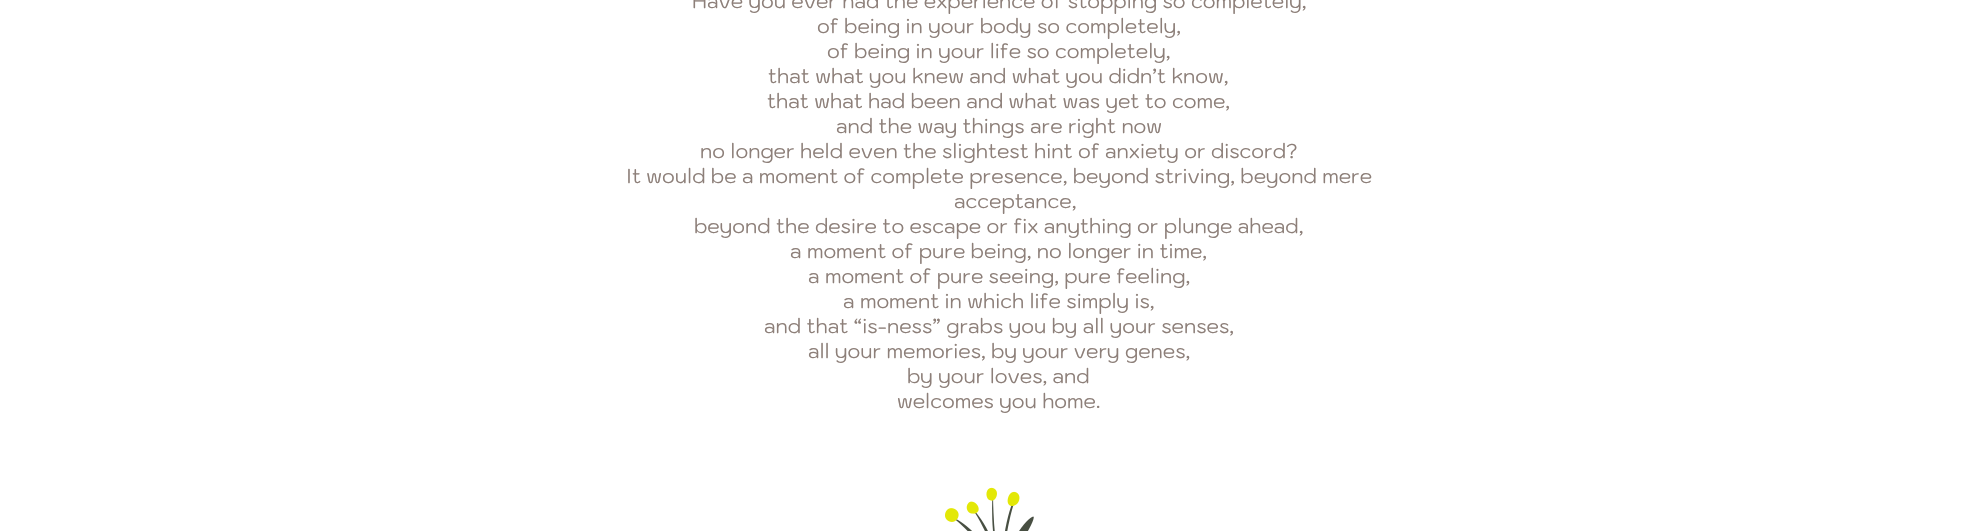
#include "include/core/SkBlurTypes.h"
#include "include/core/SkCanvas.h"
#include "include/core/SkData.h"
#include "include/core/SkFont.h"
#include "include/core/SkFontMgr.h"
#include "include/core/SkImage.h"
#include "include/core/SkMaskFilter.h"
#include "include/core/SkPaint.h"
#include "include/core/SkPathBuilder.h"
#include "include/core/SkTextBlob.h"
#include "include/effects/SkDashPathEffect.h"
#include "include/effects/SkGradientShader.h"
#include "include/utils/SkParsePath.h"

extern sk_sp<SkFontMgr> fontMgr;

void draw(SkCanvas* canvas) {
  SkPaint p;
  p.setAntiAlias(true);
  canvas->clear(SK_ColorWHITE);
  canvas->drawImageRect(SkImages::DeferredFromEncodedData(SkData::MakeFromFileName("images/1.png")), SkRect::MakeLTRB(945, 487, 1034, 531), SkSamplingOptions());
  SkFont font1(fontMgr->matchFamilyStyle("Kodchasan", SkFontStyle::Normal()), 20);
  font1.setSubpixel(true);
  p.setColor(SkColorSetRGB(141, 127, 121));
  canvas->drawString("Have you ever had the experience of stopping so completely,", 692, 8, font1, p);
  canvas->drawString("of being in your body so completely,", 817, 33, font1, p);
  canvas->drawString("of being in your life so completely,", 827, 58, font1, p);
  canvas->drawString("that what you knew and what you didn’t know,", 768, 83, font1, p);
  canvas->drawString("that what had been and what was yet to come,", 767, 108, font1, p);
  canvas->drawString("and the way things are right now", 836, 133, font1, p);
  canvas->drawString("no longer held even the slightest hint of anxiety or discord?", 700, 158, font1, p);
  canvas->drawString("It would be a moment of complete presence, beyond striving, beyond mere", 626, 183, font1, p);
  canvas->drawString("acceptance,", 954, 208, font1, p);
  canvas->drawString("beyond the desire to escape or fix anything or plunge ahead,", 694, 233, font1, p);
  canvas->drawString("a moment of pure being, no longer in time,", 790, 258, font1, p);
  canvas->drawString("a moment of pure seeing, pure feeling,", 808, 283, font1, p);
  canvas->drawString("a moment in which life simply is,", 843, 308, font1, p);
  canvas->drawString("and that “is-ness” grabs you by all your senses,", 764, 333, font1, p);
  canvas->drawString("all your memories, by your very genes,", 808, 358, font1, p);
  canvas->drawString("by your loves, and", 907, 383, font1, p);
  canvas->drawString("welcomes you home.", 897, 408, font1, p);
}
